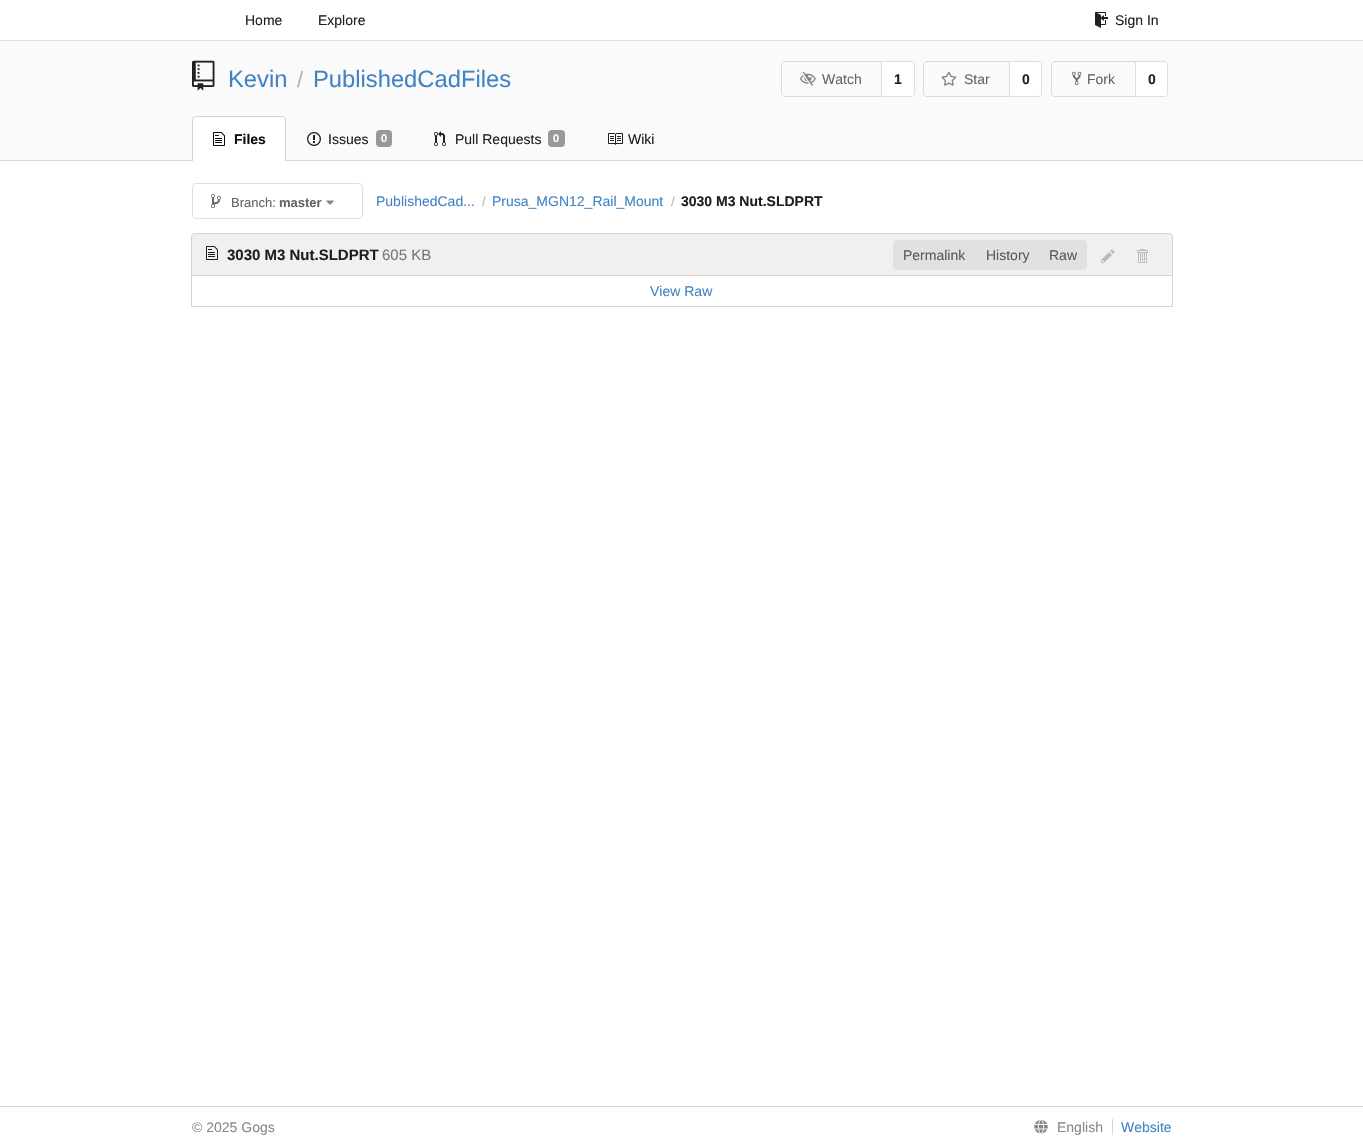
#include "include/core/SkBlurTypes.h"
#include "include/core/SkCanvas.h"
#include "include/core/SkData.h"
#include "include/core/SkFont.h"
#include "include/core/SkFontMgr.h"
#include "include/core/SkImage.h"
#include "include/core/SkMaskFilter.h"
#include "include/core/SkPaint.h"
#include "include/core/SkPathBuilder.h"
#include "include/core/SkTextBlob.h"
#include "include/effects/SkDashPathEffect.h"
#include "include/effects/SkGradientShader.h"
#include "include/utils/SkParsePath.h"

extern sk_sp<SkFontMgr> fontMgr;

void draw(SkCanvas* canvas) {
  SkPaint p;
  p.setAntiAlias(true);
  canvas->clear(SK_ColorWHITE);
  p.setColor(SkColorSetRGB(221, 221, 221));
  canvas->drawRect(SkRect::MakeLTRB(0, 40, 1363, 41), p);
  canvas->drawImageRect(SkImages::DeferredFromEncodedData(SkData::MakeFromFileName("images/1.png")), SkRect::MakeLTRB(1095, 12, 1108, 28), SkSamplingOptions());
  p.setColor(SkColorSetRGB(250, 250, 250));
  canvas->drawRect(SkRect::MakeLTRB(0, 41, 1363, 160), p);
  canvas->drawImageRect(SkImages::DeferredFromEncodedData(SkData::MakeFromFileName("images/2.png")), SkRect::MakeLTRB(192, 60, 215, 91), SkSamplingOptions());
  p.setStyle(SkPaint::kStroke_Style);
  p.setStrokeWidth(1);
  p.setColor(SkColorSetRGB(218, 218, 218));
  canvas->drawPath(SkPathBuilder().moveTo(785, 61.5f).lineTo(881.5f, 61.5f).lineTo(881.5f, 96.5f).lineTo(785, 96.5f).cubicTo(783, 96.5f, 781.5f, 95, 781.5f, 93).lineTo(781.5f, 65).cubicTo(781.5f, 63, 783, 61.5f, 785, 61.5f).close().detach(), p);
  canvas->drawImageRect(SkImages::DeferredFromEncodedData(SkData::MakeFromFileName("images/3.png")), SkRect::MakeLTRB(800, 71, 816, 86), SkSamplingOptions());
  p.setStyle(SkPaint::kFill_Style);
  p.setColor(SK_ColorWHITE);
  canvas->drawPath(SkPathBuilder().moveTo(881.5f, 61.5f).lineTo(911, 61.5f).cubicTo(913, 61.5f, 914.5f, 63, 914.5f, 65).lineTo(914.5f, 93).cubicTo(914.5f, 95, 913, 96.5f, 911, 96.5f).lineTo(881.5f, 96.5f).close().detach(), p);
  p.setStyle(SkPaint::kStroke_Style);
  p.setColor(SkColorSetRGB(222, 222, 222));
  canvas->drawPath(SkPathBuilder().moveTo(881.5f, 61.5f).lineTo(911, 61.5f).cubicTo(913, 61.5f, 914.5f, 63, 914.5f, 65).lineTo(914.5f, 93).cubicTo(914.5f, 95, 913, 96.5f, 911, 96.5f).lineTo(881.5f, 96.5f).close().detach(), p);
  p.setColor(SkColorSetRGB(218, 218, 218));
  canvas->drawPath(SkPathBuilder().moveTo(927, 61.5f).lineTo(1009.5f, 61.5f).lineTo(1009.5f, 96.5f).lineTo(927, 96.5f).cubicTo(925, 96.5f, 923.5f, 95, 923.5f, 93).lineTo(923.5f, 65).cubicTo(923.5f, 63, 925, 61.5f, 927, 61.5f).close().detach(), p);
  canvas->drawImageRect(SkImages::DeferredFromEncodedData(SkData::MakeFromFileName("images/4.png")), SkRect::MakeLTRB(941, 71, 957, 86), SkSamplingOptions());
  p.setStyle(SkPaint::kFill_Style);
  p.setColor(SK_ColorWHITE);
  canvas->drawPath(SkPathBuilder().moveTo(1009.5f, 61.5f).lineTo(1038, 61.5f).cubicTo(1040, 61.5f, 1041.5f, 63, 1041.5f, 65).lineTo(1041.5f, 93).cubicTo(1041.5f, 95, 1040, 96.5f, 1038, 96.5f).lineTo(1009.5f, 96.5f).close().detach(), p);
  p.setStyle(SkPaint::kStroke_Style);
  p.setColor(SkColorSetRGB(222, 222, 222));
  canvas->drawPath(SkPathBuilder().moveTo(1009.5f, 61.5f).lineTo(1038, 61.5f).cubicTo(1040, 61.5f, 1041.5f, 63, 1041.5f, 65).lineTo(1041.5f, 93).cubicTo(1041.5f, 95, 1040, 96.5f, 1038, 96.5f).lineTo(1009.5f, 96.5f).close().detach(), p);
  p.setColor(SkColorSetRGB(218, 218, 218));
  canvas->drawPath(SkPathBuilder().moveTo(1055, 61.5f).lineTo(1135.5f, 61.5f).lineTo(1135.5f, 96.5f).lineTo(1055, 96.5f).cubicTo(1053, 96.5f, 1051.5f, 95, 1051.5f, 93).lineTo(1051.5f, 65).cubicTo(1051.5f, 63, 1053, 61.5f, 1055, 61.5f).close().detach(), p);
  canvas->drawImageRect(SkImages::DeferredFromEncodedData(SkData::MakeFromFileName("images/5.png")), SkRect::MakeLTRB(1072, 71, 1082, 85), SkSamplingOptions());
  p.setStyle(SkPaint::kFill_Style);
  p.setColor(SK_ColorWHITE);
  canvas->drawPath(SkPathBuilder().moveTo(1135.5f, 61.5f).lineTo(1164, 61.5f).cubicTo(1166, 61.5f, 1167.5f, 63, 1167.5f, 65).lineTo(1167.5f, 93).cubicTo(1167.5f, 95, 1166, 96.5f, 1164, 96.5f).lineTo(1135.5f, 96.5f).close().detach(), p);
  p.setStyle(SkPaint::kStroke_Style);
  p.setColor(SkColorSetRGB(222, 222, 222));
  canvas->drawPath(SkPathBuilder().moveTo(1135.5f, 61.5f).lineTo(1164, 61.5f).cubicTo(1166, 61.5f, 1167.5f, 63, 1167.5f, 65).lineTo(1167.5f, 93).cubicTo(1167.5f, 95, 1166, 96.5f, 1164, 96.5f).lineTo(1135.5f, 96.5f).close().detach(), p);
  p.setStyle(SkPaint::kFill_Style);
  p.setColor(SkColorSetRGB(218, 218, 218));
  canvas->drawRect(SkRect::MakeLTRB(0, 160, 1363, 161), p);
  p.setColor(SK_ColorWHITE);
  canvas->drawPath(SkPathBuilder().moveTo(196, 116).lineTo(282, 116).cubicTo(284, 116, 286, 118, 286, 120).lineTo(286, 161).lineTo(192, 161).lineTo(192, 120).cubicTo(192, 118, 194, 116, 196, 116).close().detach(), p);
  p.setColor(SkColorSetRGB(212, 212, 213));
  canvas->drawPath(SkPathBuilder(SkPathFillType::kEvenOdd).moveTo(196, 116).lineTo(282, 116).cubicTo(284, 116, 286, 118, 286, 120).lineTo(286, 161).lineTo(192, 161).lineTo(192, 120).cubicTo(192, 118, 194, 116, 196, 116).close().moveTo(196, 117).lineTo(282, 117).cubicTo(284, 117, 285, 118, 285, 120).lineTo(285, 161).lineTo(193, 161).lineTo(193, 120).cubicTo(193, 118, 194, 117, 196, 117).close().detach(), p);
  canvas->drawImageRect(SkImages::DeferredFromEncodedData(SkData::MakeFromFileName("images/6.png")), SkRect::MakeLTRB(213, 132, 225, 146), SkSamplingOptions());
  canvas->drawImageRect(SkImages::DeferredFromEncodedData(SkData::MakeFromFileName("images/7.png")), SkRect::MakeLTRB(307, 132, 321, 146), SkSamplingOptions());
  p.setColor(SkColorSetRGB(153, 153, 153));
  canvas->drawRoundRect(SkRect::MakeLTRB(376, 130, 392, 147), 4, 4, p);
  canvas->drawImageRect(SkImages::DeferredFromEncodedData(SkData::MakeFromFileName("images/8.png")), SkRect::MakeLTRB(434, 131, 446, 146), SkSamplingOptions());
  canvas->drawRoundRect(SkRect::MakeLTRB(548, 130, 565, 147), 4, 4, p);
  canvas->drawImageRect(SkImages::DeferredFromEncodedData(SkData::MakeFromFileName("images/9.png")), SkRect::MakeLTRB(608, 133, 623, 145), SkSamplingOptions());
  p.setStyle(SkPaint::kStroke_Style);
  p.setColor(SkColorSetRGB(222, 222, 222));
  canvas->drawRoundRect(SkRect::MakeLTRB(192.5f, 183.5f, 362.5f, 218.5f), 3.5f, 3.5f, p);
  canvas->drawImageRect(SkImages::DeferredFromEncodedData(SkData::MakeFromFileName("images/10.png")), SkRect::MakeLTRB(211, 194, 221, 208), SkSamplingOptions());
  canvas->drawImageRect(SkImages::DeferredFromEncodedData(SkData::MakeFromFileName("images/11.png")), SkRect::MakeLTRB(326, 200, 334, 205), SkSamplingOptions());
  p.setStyle(SkPaint::kFill_Style);
  p.setColor(SkColorSetRGB(240, 240, 240));
  canvas->drawPath(SkPathBuilder().moveTo(195, 233.5f).lineTo(1169, 233.5f).cubicTo(1171, 233.5f, 1172.5f, 235, 1172.5f, 237).lineTo(1172.5f, 275.5f).lineTo(191.5f, 275.5f).lineTo(191.5f, 237).cubicTo(191.5f, 235, 193, 233.5f, 195, 233.5f).close().detach(), p);
  p.setStyle(SkPaint::kStroke_Style);
  p.setColor(SkColorSetRGB(212, 212, 213));
  canvas->drawPath(SkPathBuilder().moveTo(195, 233.5f).lineTo(1169, 233.5f).cubicTo(1171, 233.5f, 1172.5f, 235, 1172.5f, 237).lineTo(1172.5f, 275.5f).lineTo(191.5f, 275.5f).lineTo(191.5f, 237).cubicTo(191.5f, 235, 193, 233.5f, 195, 233.5f).close().detach(), p);
  canvas->drawImageRect(SkImages::DeferredFromEncodedData(SkData::MakeFromFileName("images/12.png")), SkRect::MakeLTRB(206, 246, 218, 260), SkSamplingOptions());
  p.setStyle(SkPaint::kFill_Style);
  p.setColor(SkColorSetRGB(224, 225, 226));
  canvas->drawPath(SkPathBuilder().moveTo(897, 240).lineTo(976, 240).lineTo(976, 270).lineTo(897, 270).cubicTo(895, 270, 893, 268, 893, 266).lineTo(893, 244).cubicTo(893, 242, 895, 240, 897, 240).close().detach(), p);
  canvas->drawRect(SkRect::MakeLTRB(976, 240, 1039, 270), p);
  canvas->drawPath(SkPathBuilder().moveTo(1039, 240).lineTo(1083, 240).cubicTo(1085, 240, 1087, 242, 1087, 244).lineTo(1087, 266).cubicTo(1087, 268, 1085, 270, 1083, 270).lineTo(1039, 270).close().detach(), p);
  canvas->drawImageRect(SkImages::DeferredFromEncodedData(SkData::MakeFromFileName("images/13.png")), SkRect::MakeLTRB(1101, 249, 1115, 263), SkSamplingOptions());
  canvas->drawImageRect(SkImages::DeferredFromEncodedData(SkData::MakeFromFileName("images/14.png")), SkRect::MakeLTRB(1137, 249, 1148, 263), SkSamplingOptions());
  p.setColor(SkColorSetRGB(212, 212, 213));
  canvas->drawRect(SkRect::MakeLTRB(1172, 276, 1173, 307), p);
  canvas->drawRect(SkRect::MakeLTRB(191, 306, 1173, 307), p);
  canvas->drawRect(SkRect::MakeLTRB(191, 276, 192, 307), p);
  p.setColor(SkColorSetRGB(214, 214, 214));
  canvas->drawRect(SkRect::MakeLTRB(0, 1106, 1363, 1107), p);
  canvas->drawImageRect(SkImages::DeferredFromEncodedData(SkData::MakeFromFileName("images/15.png")), SkRect::MakeLTRB(1034, 1120, 1048, 1134), SkSamplingOptions());
  canvas->drawRect(SkRect::MakeLTRB(1112, 1119, 1113, 1135), p);
  SkFont font1(fontMgr->matchFamilyStyle("Liberation Sans", SkFontStyle::Normal()), 14);
  font1.setSubpixel(true);
  p.setColor(SkColorSetRGB(31, 31, 31));
  canvas->drawString("Home", 245, 25, font1, p);
  canvas->drawString("Explore", 318, 25, font1, p);
  canvas->drawString("Sign In", 1115, 25, font1, p);
  SkFont font2(fontMgr->matchFamilyStyle("Liberation Sans", SkFontStyle::Normal()), 23.75f);
  font2.setSubpixel(true);
  p.setColor(SkColorSetRGB(65, 131, 196));
  canvas->drawString("Kevin", 228, 87, font2, p);
  SkFont font3(fontMgr->matchFamilyStyle("Liberation Sans", SkFontStyle::Normal()), 22);
  font3.setSubpixel(true);
  p.setColor(SkColorSetRGB(180, 180, 180));
  canvas->drawString("/", 297, 87, font3, p);
  p.setColor(SkColorSetRGB(65, 131, 196));
  canvas->drawString("PublishedCadFiles", 313, 87, font2, p);
  p.setColor(SkColorSetRGB(100, 100, 100));
  canvas->drawString("Watch", 822, 84, font1, p);
  SkFont font4(fontMgr->matchFamilyStyle("Liberation Sans", SkFontStyle::Bold()), 14);
  font4.setSubpixel(true);
  p.setColor(SkColorSetRGB(31, 31, 31));
  canvas->drawString("1", 894, 84, font4, p);
  p.setColor(SkColorSetRGB(100, 100, 100));
  canvas->drawString("Star", 964, 84, font1, p);
  p.setColor(SkColorSetRGB(31, 31, 31));
  canvas->drawString("0", 1022, 84, font4, p);
  p.setColor(SkColorSetRGB(100, 100, 100));
  canvas->drawString("Fork", 1087, 84, font1, p);
  p.setColor(SkColorSetRGB(31, 31, 31));
  canvas->drawString("0", 1148, 84, font4, p);
  p.setColor(SkColorSetRGB(13, 13, 13));
  canvas->drawString("Files", 234, 144, font4, p);
  p.setColor(SkColorSetRGB(31, 31, 31));
  canvas->drawString("Issues", 328, 144, font1, p);
  SkFont font5(fontMgr->matchFamilyStyle("Liberation Sans", SkFontStyle::Bold()), 11);
  font5.setSubpixel(true);
  p.setColor(SK_ColorWHITE);
  canvas->drawString("0", 381, 142, font5, p);
  p.setColor(SkColorSetRGB(31, 31, 31));
  canvas->drawString("Pull Requests", 455, 144, font1, p);
  p.setColor(SK_ColorWHITE);
  canvas->drawString("0", 553, 142, font5, p);
  p.setColor(SkColorSetRGB(31, 31, 31));
  canvas->drawString("Wiki", 628, 144, font1, p);
  SkFont font6(fontMgr->matchFamilyStyle("Liberation Sans", SkFontStyle::Normal()), 13);
  font6.setSubpixel(true);
  p.setColor(SkColorSetRGB(100, 100, 100));
  canvas->drawString("Branch:", 231, 207, font6, p);
  SkFont font7(fontMgr->matchFamilyStyle("Liberation Sans", SkFontStyle::Bold()), 13);
  font7.setSubpixel(true);
  canvas->drawString("master", 279, 207, font7, p);
  p.setColor(SkColorSetRGB(65, 131, 196));
  canvas->drawString("PublishedCad...", 376, 206, font1, p);
  p.setColor(SkColorSetRGB(180, 180, 180));
  canvas->drawString("/", 482, 206, font6, p);
  p.setColor(SkColorSetRGB(65, 131, 196));
  canvas->drawString("Prusa_MGN12_Rail_Mount", 492, 206, font1, p);
  p.setColor(SkColorSetRGB(180, 180, 180));
  canvas->drawString("/", 671, 206, font6, p);
  p.setColor(SkColorSetRGB(31, 31, 31));
  canvas->drawString("3030 M3 Nut.SLDPRT", 681, 206, font4, p);
  SkFont font8(fontMgr->matchFamilyStyle("Liberation Sans", SkFontStyle::Bold()), 15);
  font8.setSubpixel(true);
  canvas->drawString("3030 M3 Nut.SLDPRT", 227, 260, font8, p);
  SkFont font9(fontMgr->matchFamilyStyle("Liberation Sans", SkFontStyle::Normal()), 15);
  font9.setSubpixel(true);
  p.setColor(SkColorSetRGB(118, 118, 118));
  canvas->drawString("605 KB", 382, 260, font9, p);
  p.setColor(SkColorSetRGB(90, 90, 90));
  canvas->drawString("Permalink", 903, 260, font1, p);
  canvas->drawString("History", 986, 260, font1, p);
  canvas->drawString("Raw", 1049, 260, font1, p);
  p.setColor(SkColorSetRGB(65, 131, 196));
  canvas->drawString("View Raw", 650, 296, font1, p);
  p.setColor(SkColorSetRGB(136, 136, 136));
  canvas->drawString("© 2025 Gogs", 192, 1132, font1, p);
  canvas->drawString("English", 1057, 1132, font1, p);
  p.setColor(SkColorSetRGB(65, 131, 196));
  canvas->drawString("Website", 1121, 1132, font1, p);
}
